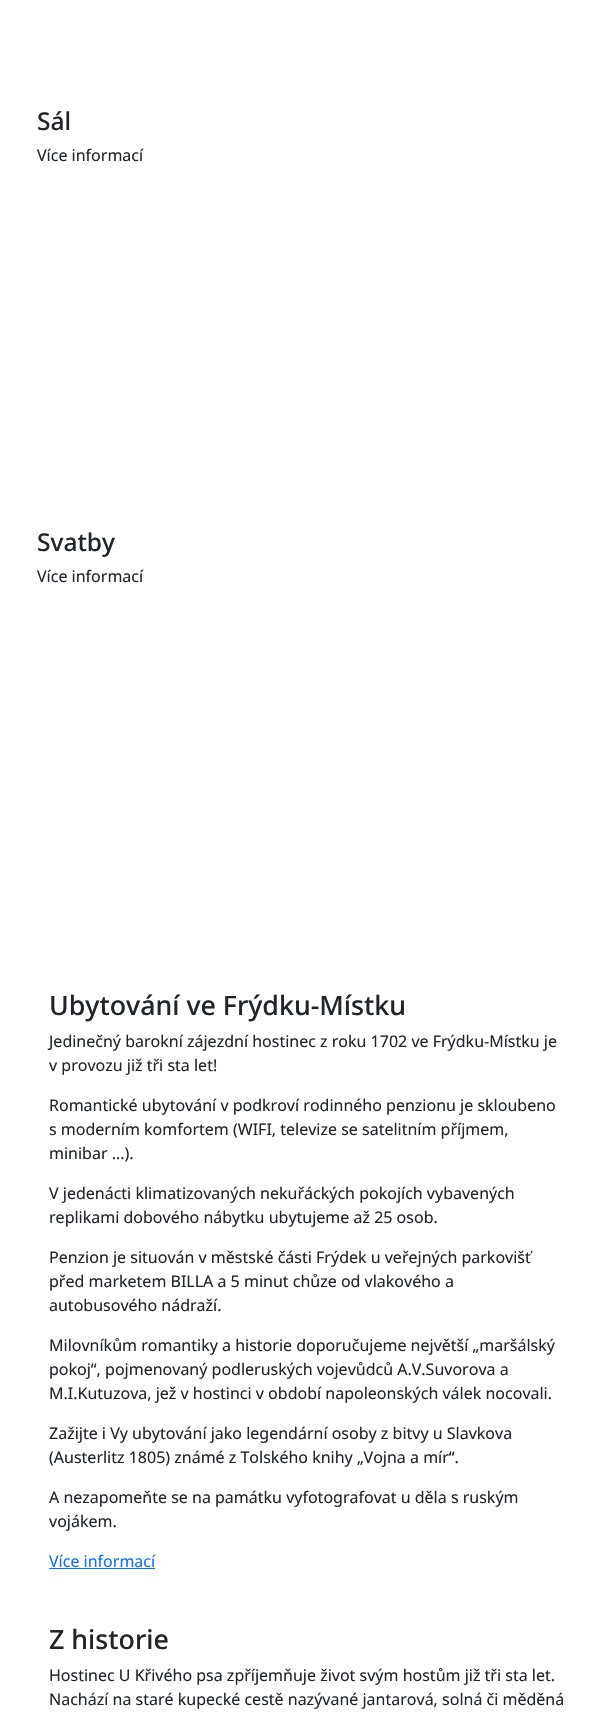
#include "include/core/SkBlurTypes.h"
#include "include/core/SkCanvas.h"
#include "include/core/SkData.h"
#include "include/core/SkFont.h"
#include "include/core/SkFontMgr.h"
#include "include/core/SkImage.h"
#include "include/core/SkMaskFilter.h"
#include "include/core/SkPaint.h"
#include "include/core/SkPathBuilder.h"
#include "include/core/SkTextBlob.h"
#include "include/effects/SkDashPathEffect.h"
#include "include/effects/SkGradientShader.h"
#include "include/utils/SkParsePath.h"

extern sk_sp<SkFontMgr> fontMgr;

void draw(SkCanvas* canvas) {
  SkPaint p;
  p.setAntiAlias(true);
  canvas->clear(SK_ColorWHITE);
  p.setColor(SkColorSetRGB(13, 110, 253));
  canvas->drawRect(SkRect::MakeLTRB(49, 1568, 155, 1569), p);
  SkFont font1(fontMgr->matchFamilyStyle("Noto Sans", SkFontStyle(500, SkFontStyle::kNormal_Width, SkFontStyle::kUpright_Slant)), 24.5f);
  font1.setSubpixel(true);
  p.setColor(SkColorSetRGB(33, 37, 41));
  canvas->drawString("Sál", 37, 130, font1, p);
  SkFont font2(fontMgr->matchFamilyStyle("Noto Sans", SkFontStyle::Normal()), 16);
  font2.setSubpixel(true);
  canvas->drawString("Více informací", 37, 161, font2, p);
  canvas->drawString("Svatby", 37, 551, font1, p);
  canvas->drawString("Více informací", 37, 582, font2, p);
  SkFont font3(fontMgr->matchFamilyStyle("Noto Sans", SkFontStyle(500, SkFontStyle::kNormal_Width, SkFontStyle::kUpright_Slant)), 26.75f);
  font3.setSubpixel(true);
  canvas->drawString("Ubytování ve Frýdku-Místku", 49, 1015, font3, p);
  canvas->drawString("Jedinečný barokní zájezdní hostinec z roku 1702 ve Frýdku-Místku je", 49, 1047, font2, p);
  canvas->drawString("v provozu již tři sta let!", 49, 1071, font2, p);
  canvas->drawString("Romantické ubytování v podkroví rodinného penzionu je skloubeno", 49, 1111, font2, p);
  canvas->drawString("s moderním komfortem (WIFI, televize se satelitním příjmem,", 49, 1135, font2, p);
  canvas->drawString("minibar ...).", 49, 1159, font2, p);
  canvas->drawString("V jedenácti klimatizovaných nekuřáckých pokojích vybavených", 49, 1199, font2, p);
  canvas->drawString("replikami dobového nábytku ubytujeme až 25 osob.", 49, 1223, font2, p);
  canvas->drawString("Penzion je situován v městské části Frýdek u veřejných parkovišť", 49, 1263, font2, p);
  canvas->drawString("před marketem BILLA a 5 minut chůze od vlakového a", 49, 1287, font2, p);
  canvas->drawString("autobusového nádraží.", 49, 1311, font2, p);
  canvas->drawString("Milovníkům romantiky a historie doporučujeme největší „maršálský", 49, 1351, font2, p);
  canvas->drawString("pokoj“, pojmenovaný podleruských vojevůdců A.V.Suvorova a", 49, 1375, font2, p);
  canvas->drawString("M.I.Kutuzova, jež v hostinci v období napoleonských válek nocovali.", 49, 1399, font2, p);
  canvas->drawString("Zažijte i Vy ubytování jako legendární osoby z bitvy u Slavkova", 49, 1439, font2, p);
  canvas->drawString("(Austerlitz 1805) známé z Tolského knihy „Vojna a mír“.", 49, 1463, font2, p);
  canvas->drawString("A nezapomeňte se na památku vyfotografovat u děla s ruským", 49, 1503, font2, p);
  canvas->drawString("vojákem.", 49, 1527, font2, p);
  p.setColor(SkColorSetRGB(13, 110, 253));
  canvas->drawString("Více informací", 49, 1567, font2, p);
  p.setColor(SkColorSetRGB(33, 37, 41));
  canvas->drawString("Z historie", 49, 1649, font3, p);
  canvas->drawString("Hostinec U Křivého psa zpříjemňuje život svým hostům již tři sta let.", 49, 1681, font2, p);
  canvas->drawString("Nachází na staré kupecké cestě nazývané jantarová, solná či měděná", 49, 1705, font2, p);
}
